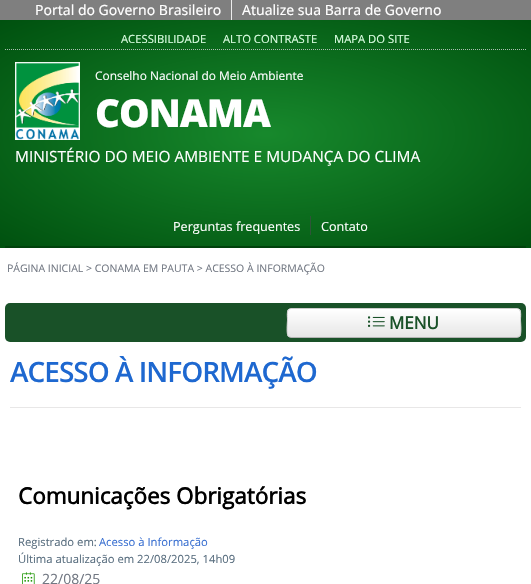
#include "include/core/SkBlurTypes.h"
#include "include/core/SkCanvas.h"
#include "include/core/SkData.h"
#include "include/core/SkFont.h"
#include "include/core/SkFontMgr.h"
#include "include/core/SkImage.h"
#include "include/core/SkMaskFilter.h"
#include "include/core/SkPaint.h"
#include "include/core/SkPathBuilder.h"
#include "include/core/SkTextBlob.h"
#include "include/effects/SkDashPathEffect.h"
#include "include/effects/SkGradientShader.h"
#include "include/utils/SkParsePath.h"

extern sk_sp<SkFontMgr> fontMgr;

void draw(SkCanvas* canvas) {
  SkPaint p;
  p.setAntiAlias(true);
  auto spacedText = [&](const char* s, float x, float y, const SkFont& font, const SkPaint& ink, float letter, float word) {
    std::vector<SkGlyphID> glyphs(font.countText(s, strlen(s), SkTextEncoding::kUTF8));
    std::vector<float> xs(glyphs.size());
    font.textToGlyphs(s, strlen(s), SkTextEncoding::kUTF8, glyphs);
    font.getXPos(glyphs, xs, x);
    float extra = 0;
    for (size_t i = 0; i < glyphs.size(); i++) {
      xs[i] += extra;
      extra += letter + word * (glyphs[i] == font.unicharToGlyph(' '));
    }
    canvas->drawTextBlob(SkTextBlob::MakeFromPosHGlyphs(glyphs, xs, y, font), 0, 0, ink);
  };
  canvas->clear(SK_ColorWHITE);
  p.setColor(SkColorSetRGB(127, 127, 127));
  canvas->drawRect(SkRect::MakeLTRB(0, 0, 531, 20), p);
  p.setColor(SkColorSetRGB(237, 237, 237));
  canvas->drawRect(SkRect::MakeLTRB(231, 0, 232, 20), p);
  {
    const SkColor colors[] = {SkColorSetRGB(23, 136, 44), SkColorSetRGB(0, 81, 15)};
    const float stops[] = {0.01f, 1};
    SkMatrix m = SkMatrix::Translate(266, 134).preScale(375, 161);
    p.setShader(SkGradientShader::MakeRadial({0, 0}, 1, colors, stops, 2, SkTileMode::kClamp, 0, &m));
    p.setAlpha(255);
  }
  canvas->drawRect(SkRect::MakeLTRB(0, 20, 531, 248), p);
  p.setStyle(SkPaint::kStroke_Style);
  p.setStrokeWidth(1);
  p.setShader(nullptr);
  p.setColor(SkColorSetRGB(171, 190, 176));
  p.setPathEffect(SkDashPathEffect::Make({{1, 1}}, 0));
  canvas->drawPath(SkPathBuilder().moveTo(5, 49.5f).lineTo(526, 49.5f).detach(), p);
  p.setPathEffect(nullptr);
  canvas->drawImageRect(SkImages::DeferredFromEncodedData(SkData::MakeFromFileName("images/1.png")), SkRect::MakeLTRB(15, 62, 80, 140), SkSamplingOptions());
  p.setStyle(SkPaint::kFill_Style);
  p.setColor(SkColorSetRGB(0, 66, 12));
  canvas->drawRect(SkRect::MakeLTRB(5, 246, 526, 248), p);
  p.setColor(SkColorSetRGB(47, 84, 57));
  canvas->drawRect(SkRect::MakeLTRB(310, 216, 311, 235), p);
  p.setColor(SkColorSetRGB(25, 81, 40));
  canvas->drawRoundRect(SkRect::MakeLTRB(5, 303, 526, 342), 5, 5, p);
  canvas->save();
  canvas->clipPath(SkPathBuilder().moveTo(291, 308).lineTo(517, 308).cubicTo(519, 308, 521, 310, 521, 312).lineTo(521, 334).cubicTo(521, 336, 519, 338, 517, 338).lineTo(291, 338).cubicTo(289, 338, 287, 336, 287, 334).lineTo(287, 312).cubicTo(287, 310, 289, 308, 291, 308).close().detach(), true);
  {
    const SkColor colors[] = {SK_ColorWHITE, SkColorSetRGB(230, 230, 230)};
    const float stops[] = {0, 1};
    const SkPoint ends[] = {{404, 309}, {404, 337}};
    p.setShader(SkGradientShader::MakeLinear(ends, colors, stops, 2, SkTileMode::kClamp));
    p.setAlpha(255);
  }
  canvas->drawRect(SkRect::MakeLTRB(287, 309, 521, 337), p);
  canvas->restore();
  p.setStyle(SkPaint::kStroke_Style);
  p.setShader(nullptr);
  p.setColor(SkColorSetRGB(179, 179, 179));
  canvas->drawPath(SkPathBuilder().moveTo(519.5f, 336.5f).cubicTo(519, 337, 518, 337.5f, 517, 337.5f).lineTo(291, 337.5f).cubicTo(290, 337.5f, 289, 337, 288.5f, 336.5f).detach(), p);
  p.setColor(SkColorSetRGB(204, 204, 204));
  canvas->drawPath(SkPathBuilder().moveTo(288.5f, 336.5f).cubicTo(286, 334, 287.5f, 322.5f, 287.5f, 319.5f).cubicTo(287.5f, 316.5f, 286, 308.5f, 291, 308.5f).lineTo(517, 308.5f).cubicTo(522, 308.5f, 520.5f, 316.5f, 520.5f, 319.5f).cubicTo(520.5f, 322.5f, 522, 334, 519.5f, 336.5f).detach(), p);
  canvas->drawImageRect(SkImages::DeferredFromEncodedData(SkData::MakeFromFileName("images/2.png")), SkRect::MakeLTRB(368, 316, 385, 327), SkSamplingOptions());
  p.setStyle(SkPaint::kFill_Style);
  p.setColor(SkColorSetRGB(232, 231, 231));
  canvas->drawRect(SkRect::MakeLTRB(10, 407, 521, 408), p);
  canvas->drawImageRect(SkImages::DeferredFromEncodedData(SkData::MakeFromFileName("images/3.png")), SkRect::MakeLTRB(22, 572, 35, 584), SkSamplingOptions());
  SkFont font1(fontMgr->matchFamilyStyle("Noto Sans", SkFontStyle::Normal()), 14);
  font1.setSubpixel(true);
  p.setColor(SK_ColorWHITE);
  canvas->drawString("Portal do Governo Brasileiro", 35, 15, font1, p);
  canvas->drawString("Atualize sua Barra de Governo", 242, 15, font1, p);
  SkFont font2(fontMgr->matchFamilyStyle("Open Sans", SkFontStyle::Normal()), 11.25f);
  font2.setSubpixel(true);
  p.setColor(SkColorSetRGB(220, 255, 227));
  canvas->drawString("ACESSIBILIDADE", 121, 43, font2, p);
  canvas->drawString("ALTO CONTRASTE", 223, 43, font2, p);
  canvas->drawString("MAPA DO SITE", 334, 43, font2, p);
  SkFont font3(fontMgr->matchFamilyStyle("Open Sans", SkFontStyle::Normal()), 11.9f);
  font3.setSubpixel(true);
  p.setColor(SK_ColorWHITE);
  canvas->drawString("Conselho Nacional do Meio Ambiente", 95, 80, font3, p);
  SkFont font4(fontMgr->matchFamilyStyle("Open Sans", SkFontStyle(800, SkFontStyle::kNormal_Width, SkFontStyle::kUpright_Slant)), 38.5f);
  font4.setSubpixel(true);
  spacedText("CONAMA", 95, 127, font4, p, -1, 0);
  SkFont font5(fontMgr->matchFamilyStyle("Open Sans", SkFontStyle::Normal()), 15.4f);
  font5.setSubpixel(true);
  canvas->drawString("MINISTÉRIO DO MEIO AMBIENTE E MUDANÇA DO CLIMA", 15, 162, font5, p);
  SkFont font6(fontMgr->matchFamilyStyle("Open Sans", SkFontStyle::Normal()), 12.6f);
  font6.setSubpixel(true);
  canvas->drawString("Perguntas frequentes", 173, 231, font6, p);
  canvas->drawString("Contato", 321, 231, font6, p);
  SkFont font7(fontMgr->matchFamilyStyle("Open Sans", SkFontStyle::Normal()), 10.5f);
  font7.setSubpixel(true);
  p.setColor(SkColorSetRGB(113, 119, 130));
  canvas->drawString("PÁGINA INICIAL > CONAMA EM PAUTA > ACESSO À INFORMAÇÃO", 7, 272, font7, p);
  SkFont font8(fontMgr->matchFamilyStyle("Open Sans", SkFontStyle::Bold()), 17);
  font8.setSubpixel(true);
  p.setColor(SkColorSetRGB(25, 81, 40));
  canvas->drawString("MENU", 389, 329, font8, p);
  SkFont font9(fontMgr->matchFamilyStyle("Open Sans", SkFontStyle(600, SkFontStyle::kNormal_Width, SkFontStyle::kUpright_Slant)), 28);
  font9.setSubpixel(true);
  p.setColor(SkColorSetRGB(30, 104, 208));
  spacedText("ACESSO À INFORMAÇÃO", 10, 382, font9, p, -1, 0);
  SkFont font10(fontMgr->matchFamilyStyle("Open Sans", SkFontStyle::Bold()), 22.4f);
  font10.setSubpixel(true);
  p.setColor(SK_ColorBLACK);
  canvas->drawString("Comunicações Obrigatórias", 18, 504, font10, p);
  p.setColor(SkColorSetRGB(89, 110, 127));
  canvas->drawString("Registrado em:", 18, 546, font2, p);
  p.setColor(SkColorSetRGB(58, 112, 209));
  canvas->drawString("Acesso à Informação", 99, 546, font2, p);
  p.setColor(SkColorSetRGB(89, 110, 127));
  canvas->drawString("Última atualização em 22/08/2025, 14h09", 18, 563, font2, p);
  SkFont font11(fontMgr->matchFamilyStyle("Open Sans", SkFontStyle::Normal()), 14);
  font11.setSubpixel(true);
  p.setColor(SkColorSetRGB(113, 119, 130));
  canvas->drawString("22/08/25", 42, 584, font11, p);
}
